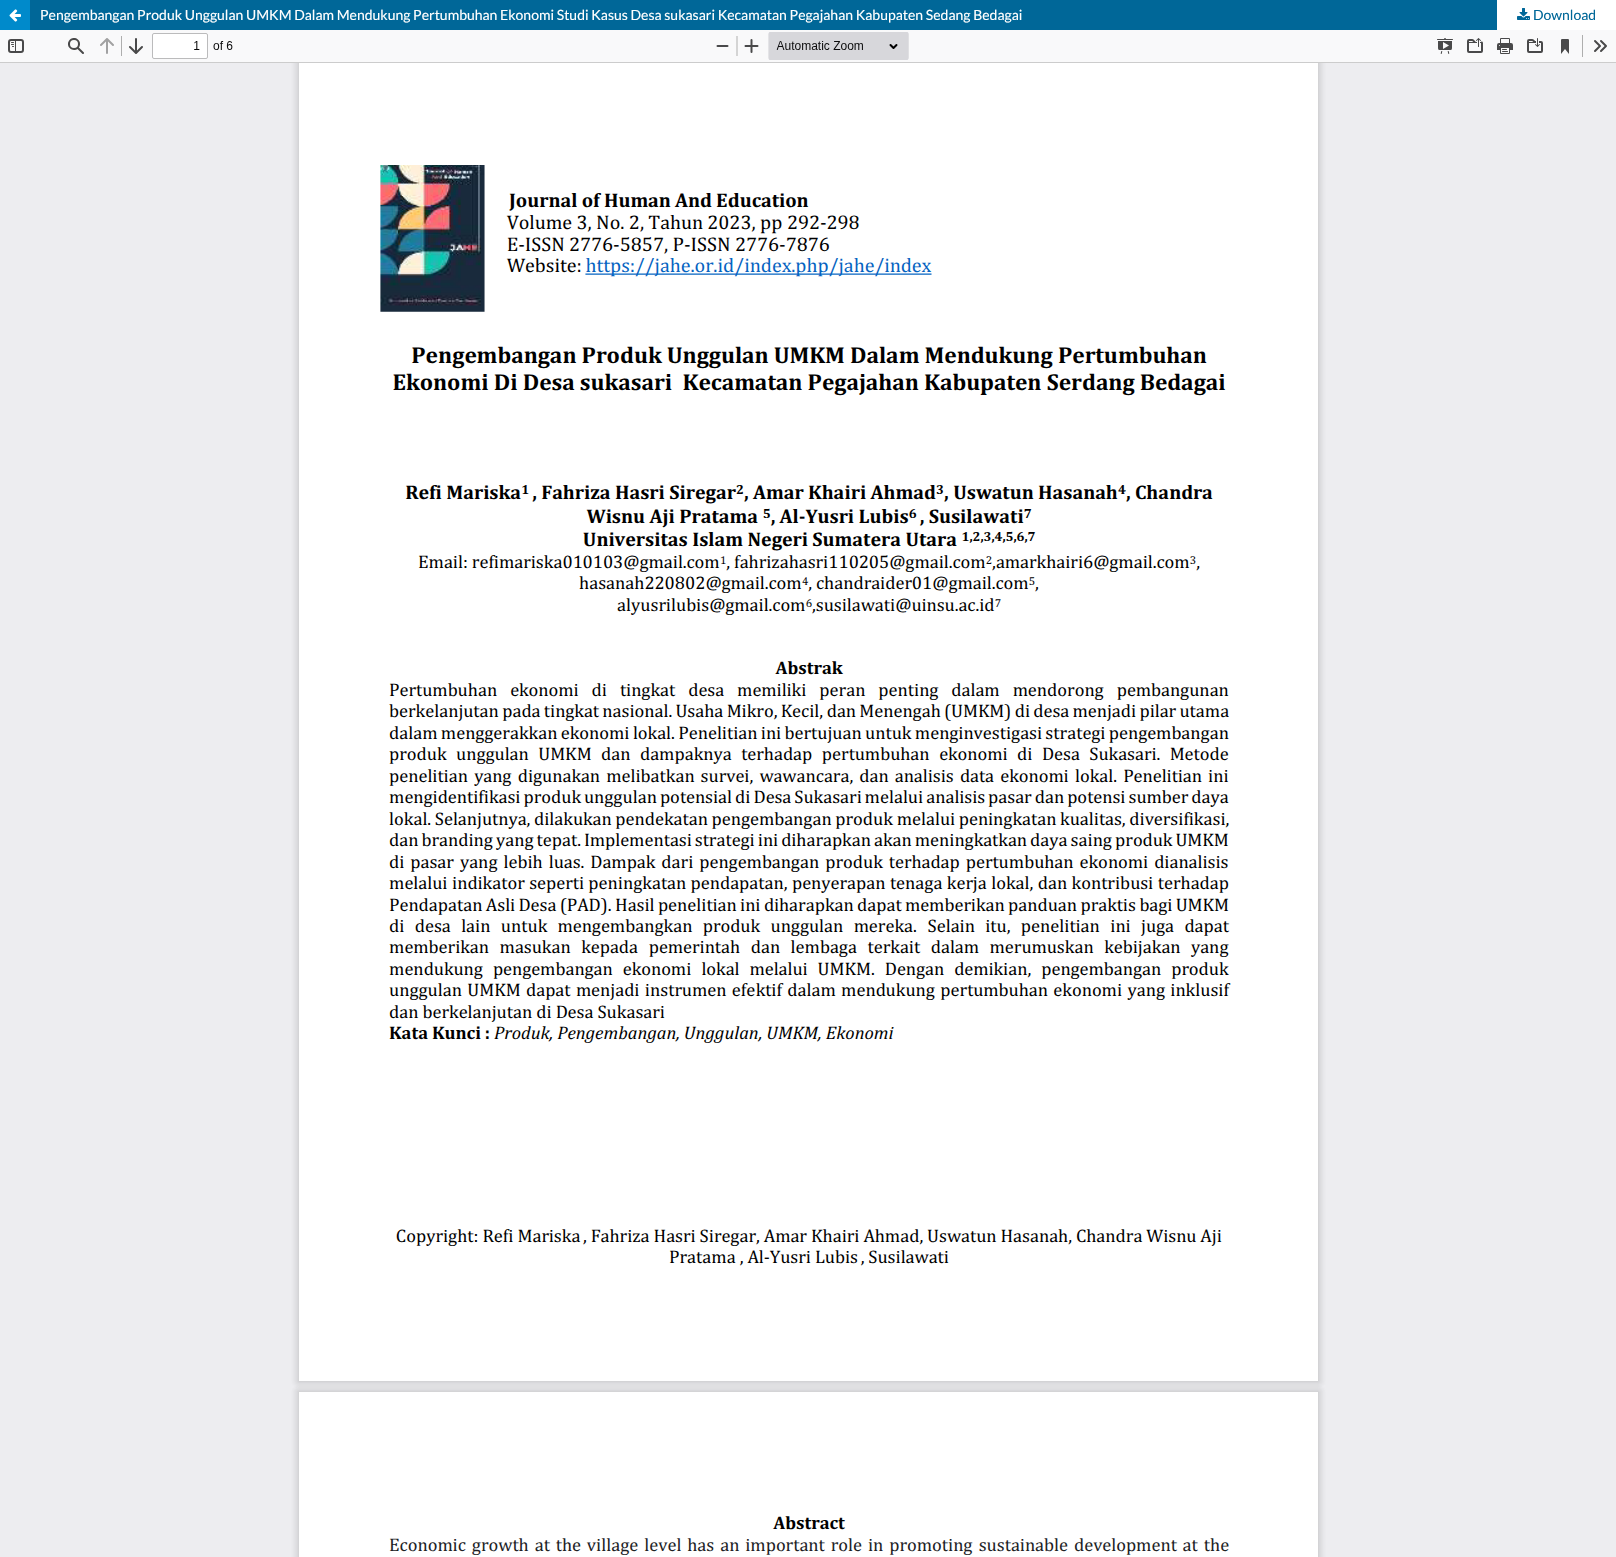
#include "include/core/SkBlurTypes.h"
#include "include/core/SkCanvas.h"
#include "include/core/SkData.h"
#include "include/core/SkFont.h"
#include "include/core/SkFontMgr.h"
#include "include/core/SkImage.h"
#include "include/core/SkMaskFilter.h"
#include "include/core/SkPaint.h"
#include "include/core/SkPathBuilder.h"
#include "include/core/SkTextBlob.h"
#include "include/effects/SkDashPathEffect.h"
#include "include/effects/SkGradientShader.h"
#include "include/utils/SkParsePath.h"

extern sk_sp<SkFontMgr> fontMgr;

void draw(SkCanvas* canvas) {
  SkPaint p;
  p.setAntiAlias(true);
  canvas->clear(SK_ColorWHITE);
  p.setColor(SkColorSetRGB(0, 103, 152));
  canvas->drawRect(SkRect::MakeLTRB(30, 0, 1497, 30), p);
  p.setColor(SkColorSetRGB(0, 138, 203));
  canvas->drawRect(SkRect::MakeLTRB(0, 0, 30, 30), p);
  canvas->drawImageRect(SkImages::DeferredFromEncodedData(SkData::MakeFromFileName("images/1.png")), SkRect::MakeLTRB(9, 9, 21, 22), SkSamplingOptions());
  canvas->drawImageRect(SkImages::DeferredFromEncodedData(SkData::MakeFromFileName("images/2.png")), SkRect::MakeLTRB(1517, 8, 1530, 20), SkSamplingOptions());
  canvas->drawImageRect(SkImages::DeferredFromEncodedData(SkData::MakeFromFileName("images/3.png")), SkRect::MakeLTRB(0, 30, 1616, 1557), SkSamplingOptions());
  SkFont font1(fontMgr->matchFamilyStyle("Lato", SkFontStyle::Normal()), 14);
  font1.setSubpixel(true);
  p.setColor(SK_ColorWHITE);
  canvas->drawString("Pengembangan Produk Unggulan UMKM Dalam Mendukung Pertumbuhan Ekonomi Studi Kasus Desa sukasari Kecamatan Pegajahan Kabupaten Sedang Bedagai", 40, 20, font1, p);
  p.setColor(SkColorSetRGB(0, 103, 152));
  canvas->drawString("Download", 1533, 20, font1, p);
}
